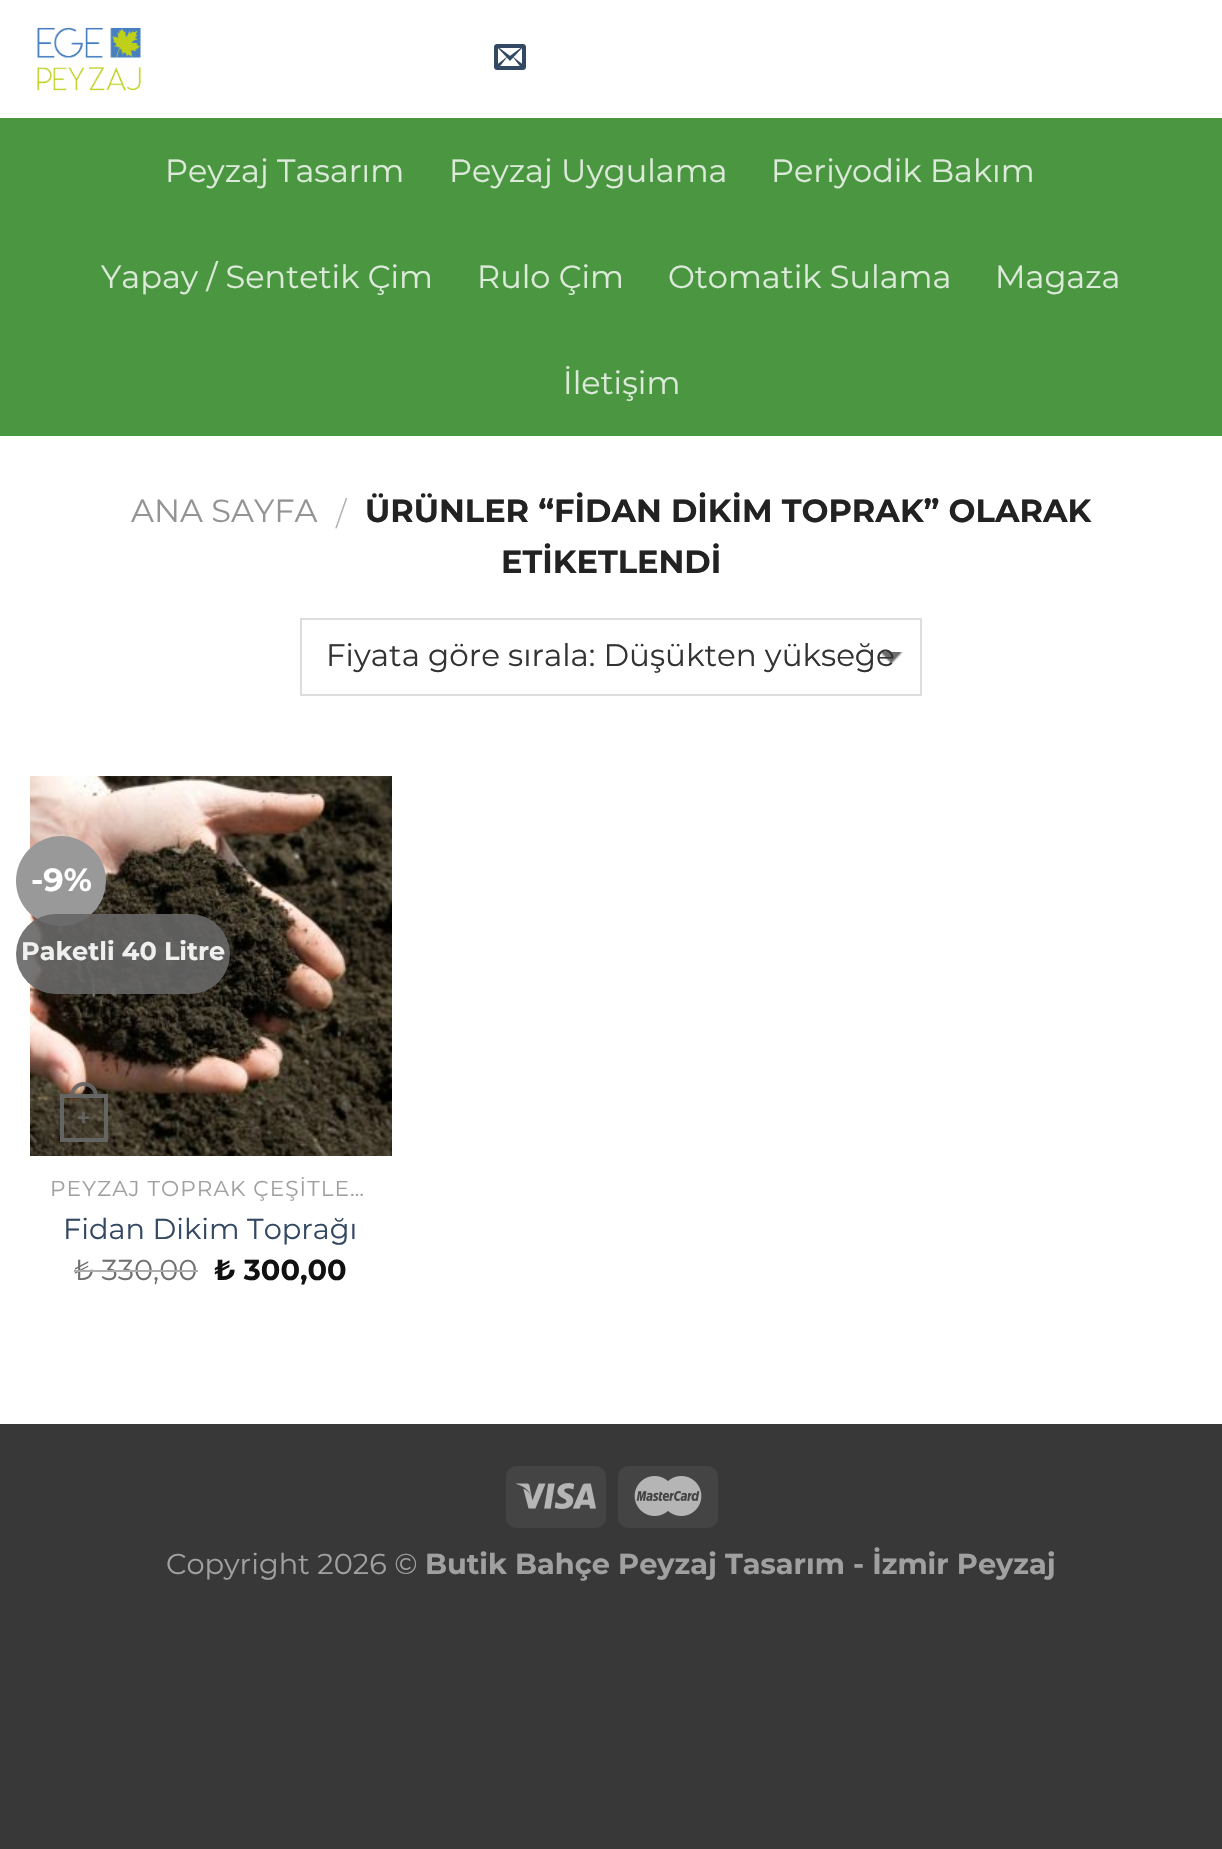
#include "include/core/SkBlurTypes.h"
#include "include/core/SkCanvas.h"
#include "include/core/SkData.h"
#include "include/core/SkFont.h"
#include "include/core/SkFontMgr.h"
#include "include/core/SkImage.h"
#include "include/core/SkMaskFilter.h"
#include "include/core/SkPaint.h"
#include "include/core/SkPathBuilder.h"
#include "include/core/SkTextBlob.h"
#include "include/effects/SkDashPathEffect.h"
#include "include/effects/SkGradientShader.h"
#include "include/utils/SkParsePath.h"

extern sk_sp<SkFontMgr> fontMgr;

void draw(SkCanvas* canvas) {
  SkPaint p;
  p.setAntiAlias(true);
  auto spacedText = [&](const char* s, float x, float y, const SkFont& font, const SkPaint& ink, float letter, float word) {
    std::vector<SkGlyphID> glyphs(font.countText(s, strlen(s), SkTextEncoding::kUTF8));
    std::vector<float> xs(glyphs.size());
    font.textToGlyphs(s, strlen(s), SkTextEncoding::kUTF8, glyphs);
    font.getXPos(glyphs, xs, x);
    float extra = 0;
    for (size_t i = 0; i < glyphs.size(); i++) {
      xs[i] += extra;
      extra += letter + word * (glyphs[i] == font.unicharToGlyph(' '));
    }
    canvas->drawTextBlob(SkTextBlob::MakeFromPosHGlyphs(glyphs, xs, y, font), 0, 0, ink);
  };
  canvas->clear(SkColorSetRGB(56, 56, 56));
  p.setColor(SK_ColorWHITE);
  canvas->drawRect(SkRect::MakeLTRB(0, 0, 1222, 1424), p);
  canvas->drawImageRect(SkImages::DeferredFromEncodedData(SkData::MakeFromFileName("images/1.png")), SkRect::MakeLTRB(37, 27, 141, 91), SkSamplingOptions());
  canvas->drawImageRect(SkImages::DeferredFromEncodedData(SkData::MakeFromFileName("images/2.png")), SkRect::MakeLTRB(494, 44, 526, 70), SkSamplingOptions());
  p.setColor(SkColorSetRGB(75, 150, 64));
  canvas->drawRect(SkRect::MakeLTRB(0, 118, 1222, 436), p);
  canvas->drawImageRect(SkImages::DeferredFromEncodedData(SkData::MakeFromFileName("images/3.png")), SkRect::MakeLTRB(880, 652, 903, 664), SkSamplingOptions());
  p.setStyle(SkPaint::kStroke_Style);
  p.setStrokeWidth(2);
  p.setColor(SkColorSetRGB(221, 221, 221));
  canvas->drawRect(SkRect::MakeLTRB(301, 619, 921, 695), p);
  canvas->drawImageRect(SkImages::DeferredFromEncodedData(SkData::MakeFromFileName("images/4.png")), SkRect::MakeLTRB(30, 776, 392, 1156), SkSamplingOptions());
  p.setStyle(SkPaint::kFill_Style);
  p.setColor(SkColorSetRGB(153, 153, 153));
  canvas->drawCircle(61, 881, 45, p);
  p.setColor(SkColorSetARGB(230, 102, 102, 102));
  canvas->drawRoundRect(SkRect::MakeLTRB(16, 914, 230, 994), 40, 40, p);
  p.setStyle(SkPaint::kStroke_Style);
  p.setStrokeWidth(4);
  p.setColor(SkColorSetARGB(242, 102, 102, 102));
  canvas->drawRect(SkRect::MakeLTRB(62, 1096, 106, 1140), p);
  p.setStyle(SkPaint::kFill_Style);
  canvas->drawPath(SkPathBuilder(SkPathFillType::kEvenOdd).moveTo(84, 1082).cubicTo(91.5f, 1082, 98, 1088, 98, 1096).lineTo(98, 1098).lineTo(70, 1098).lineTo(70, 1096).cubicTo(70, 1088, 76.5f, 1082, 84, 1082).close().moveTo(84, 1086).cubicTo(89.5f, 1086, 94, 1090.5f, 94, 1096).lineTo(94, 1098).lineTo(74, 1098).lineTo(74, 1096).cubicTo(74, 1090.5f, 78.5f, 1086, 84, 1086).close().detach(), p);
  p.setColor(SkColorSetRGB(68, 68, 68));
  canvas->drawRoundRect(SkRect::MakeLTRB(506, 1466, 606, 1528), 10, 10, p);
  canvas->drawImageRect(SkImages::DeferredFromEncodedData(SkData::MakeFromFileName("images/5.png")), SkRect::MakeLTRB(516, 1483, 596, 1509), SkSamplingOptions());
  canvas->drawRoundRect(SkRect::MakeLTRB(618, 1466, 718, 1528), 10, 10, p);
  canvas->drawImageRect(SkImages::DeferredFromEncodedData(SkData::MakeFromFileName("images/6.png")), SkRect::MakeLTRB(634, 1476, 702, 1516), SkSamplingOptions());
  SkFont font1(fontMgr->matchFamilyStyle("Montserrat", SkFontStyle::Normal()), 32);
  font1.setSubpixel(true);
  p.setColor(SkColorSetRGB(219, 234, 217));
  canvas->drawString("Peyzaj Tasarım", 165, 182, font1, p);
  canvas->drawString("Peyzaj Uygulama", 449, 182, font1, p);
  canvas->drawString("Periyodik Bakım", 771, 182, font1, p);
  canvas->drawString("Yapay / Sentetik Çim", 101, 288, font1, p);
  canvas->drawString("Rulo Çim", 477, 288, font1, p);
  canvas->drawString("Otomatik Sulama", 668, 288, font1, p);
  canvas->drawString("Magaza", 995, 288, font1, p);
  canvas->drawString("İletişim", 563, 394, font1, p);
  p.setColor(SkColorSetRGB(148, 148, 148));
  canvas->drawString("ANA SAYFA", 131, 522, font1, p);
  SkFont font2(fontMgr->matchFamilyStyle("Montserrat", SkFontStyle(300, SkFontStyle::kNormal_Width, SkFontStyle::kUpright_Slant)), 32);
  font2.setSubpixel(true);
  p.setColor(SkColorSetRGB(178, 178, 178));
  canvas->drawString("/", 336, 525, font2, p);
  SkFont font3(fontMgr->matchFamilyStyle("Montserrat", SkFontStyle::Bold()), 32);
  font3.setSubpixel(true);
  p.setColor(SkColorSetRGB(34, 34, 34));
  canvas->drawString("ÜRÜNLER “FİDAN DİKİM TOPRAK” OLARAK", 365, 522, font3, p);
  canvas->drawString("ETİKETLENDİ", 501, 573, font3, p);
  SkFont font4(fontMgr->matchFamilyStyle("Montserrat", SkFontStyle::Normal()), 31);
  font4.setSubpixel(true);
  p.setColor(SkColorSetRGB(51, 51, 51));
  canvas->drawString("Fiyata göre sırala: Düşükten yükseğe", 326, 666, font4, p);
  p.setColor(SK_ColorWHITE);
  canvas->drawString("-9%", 31, 891, font3, p);
  SkFont font5(fontMgr->matchFamilyStyle("Montserrat", SkFontStyle::Bold()), 25.5f);
  font5.setSubpixel(true);
  p.setColor(SkColorSetRGB(239, 239, 239));
  canvas->drawString("Paketli 40 Litre", 21, 960, font5, p);
  SkFont font6(fontMgr->matchFamilyStyle("Liberation Sans", SkFontStyle::Bold()), 22);
  font6.setSubpixel(true);
  p.setColor(SkColorSetRGB(100, 100, 99));
  canvas->drawString("+", 77, 1125, font6, p);
  SkFont font7(fontMgr->matchFamilyStyle("Montserrat", SkFontStyle::Normal()), 21.6f);
  font7.setSubpixel(true);
  p.setColor(SkColorSetRGB(160, 160, 160));
  spacedText("PEYZAJ TOPRAK ÇEŞİTLE…", 50, 1196, font7, p, 1.1f, 0);
  SkFont font8(fontMgr->matchFamilyStyle("Montserrat", SkFontStyle::Normal()), 28.8f);
  font8.setSubpixel(true);
  p.setColor(SkColorSetRGB(51, 72, 98));
  canvas->drawString("Fidan Dikim Toprağı", 63, 1239, font8, p);
  p.setColor(SkColorSetRGB(112, 112, 112));
  canvas->drawString("₺ 330,00", 74, 1280, font8, p);
  p.setColor(SkColorSetRGB(173, 173, 173));
  canvas->drawRect(SkRect::MakeLTRB(74, 1270, 198, 1272), p);
  SkFont font9(fontMgr->matchFamilyStyle("Montserrat", SkFontStyle::Bold()), 28.8f);
  font9.setSubpixel(true);
  p.setColor(SkColorSetRGB(17, 17, 17));
  canvas->drawString("₺ 300,00", 214, 1280, font9, p);
  p.setColor(SkColorSetRGB(160, 160, 160));
  canvas->drawString("Copyright 2026 ©", 166, 1574, font8, p);
  canvas->drawString("Butik Bahçe Peyzaj Tasarım - İzmir Peyzaj", 425, 1574, font9, p);
}
